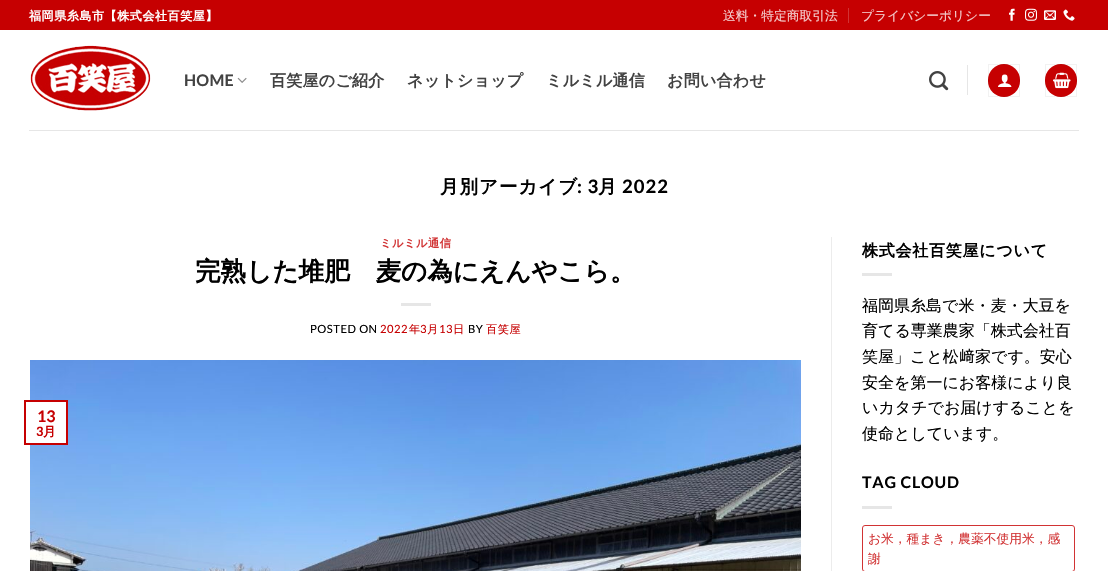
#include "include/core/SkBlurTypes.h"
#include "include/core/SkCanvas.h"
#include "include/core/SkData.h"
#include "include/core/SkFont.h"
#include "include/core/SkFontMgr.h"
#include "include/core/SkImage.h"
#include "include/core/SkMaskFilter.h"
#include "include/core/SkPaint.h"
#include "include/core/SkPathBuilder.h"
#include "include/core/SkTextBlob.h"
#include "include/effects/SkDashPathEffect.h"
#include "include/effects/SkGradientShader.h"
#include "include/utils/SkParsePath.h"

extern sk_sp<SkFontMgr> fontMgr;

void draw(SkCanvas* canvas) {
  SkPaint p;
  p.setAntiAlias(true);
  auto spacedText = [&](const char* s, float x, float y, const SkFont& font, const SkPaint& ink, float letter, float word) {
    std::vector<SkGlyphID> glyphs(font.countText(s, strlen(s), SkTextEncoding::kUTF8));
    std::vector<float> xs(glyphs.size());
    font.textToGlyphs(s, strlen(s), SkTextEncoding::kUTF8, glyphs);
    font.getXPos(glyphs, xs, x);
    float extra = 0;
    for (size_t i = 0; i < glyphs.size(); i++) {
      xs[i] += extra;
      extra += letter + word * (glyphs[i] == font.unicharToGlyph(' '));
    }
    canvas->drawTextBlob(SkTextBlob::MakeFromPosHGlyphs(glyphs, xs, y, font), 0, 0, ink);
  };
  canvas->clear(SK_ColorWHITE);
  p.setColor(SkColorSetRGB(198, 0, 1));
  canvas->drawRect(SkRect::MakeLTRB(0, 0, 1108, 30), p);
  p.setColor(SkColorSetRGB(209, 51, 52));
  canvas->drawRect(SkRect::MakeLTRB(848, 8, 849, 23), p);
  canvas->drawImageRect(SkImages::DeferredFromEncodedData(SkData::MakeFromFileName("images/1.png")), SkRect::MakeLTRB(1009, 8, 1015, 21), SkSamplingOptions());
  canvas->drawImageRect(SkImages::DeferredFromEncodedData(SkData::MakeFromFileName("images/2.png")), SkRect::MakeLTRB(1025, 8, 1037, 21), SkSamplingOptions());
  canvas->drawImageRect(SkImages::DeferredFromEncodedData(SkData::MakeFromFileName("images/3.png")), SkRect::MakeLTRB(1044, 10, 1056, 20), SkSamplingOptions());
  canvas->drawImageRect(SkImages::DeferredFromEncodedData(SkData::MakeFromFileName("images/4.png")), SkRect::MakeLTRB(1063, 9, 1075, 21), SkSamplingOptions());
  canvas->drawImageRect(SkImages::DeferredFromEncodedData(SkData::MakeFromFileName("images/5.png")), SkRect::MakeLTRB(30, 45, 151, 111), SkSamplingOptions());
  canvas->drawImageRect(SkImages::DeferredFromEncodedData(SkData::MakeFromFileName("images/6.png")), SkRect::MakeLTRB(237, 77, 247, 83), SkSamplingOptions());
  canvas->drawImageRect(SkImages::DeferredFromEncodedData(SkData::MakeFromFileName("images/7.png")), SkRect::MakeLTRB(929, 71, 949, 91), SkSamplingOptions());
  p.setColor(SkColorSetRGB(230, 230, 230));
  canvas->drawRect(SkRect::MakeLTRB(967, 65, 968, 95), p);
  p.setColor(SkColorSetRGB(198, 0, 1));
  canvas->drawRoundRect(SkRect::MakeLTRB(988, 64, 1020, 97), 16, 16, p);
  p.setStyle(SkPaint::kStroke_Style);
  p.setStrokeWidth(1);
  p.setColor(SkColorSetARGB(13, 0, 0, 0));
  canvas->drawRect(SkRect::MakeLTRB(988.5f, 64.5f, 1019.5f, 96.5f), p);
  canvas->drawImageRect(SkImages::DeferredFromEncodedData(SkData::MakeFromFileName("images/8.png")), SkRect::MakeLTRB(998, 74, 1012, 87), SkSamplingOptions());
  p.setStyle(SkPaint::kFill_Style);
  p.setColor(SkColorSetRGB(198, 0, 1));
  canvas->drawRoundRect(SkRect::MakeLTRB(1045, 64, 1077, 97), 16, 16, p);
  p.setStyle(SkPaint::kStroke_Style);
  p.setColor(SkColorSetARGB(13, 0, 0, 0));
  canvas->drawRect(SkRect::MakeLTRB(1045.5f, 64.5f, 1076.5f, 96.5f), p);
  canvas->drawImageRect(SkImages::DeferredFromEncodedData(SkData::MakeFromFileName("images/9.png")), SkRect::MakeLTRB(1053, 72, 1071, 89), SkSamplingOptions());
  p.setStyle(SkPaint::kFill_Style);
  p.setColor(SkColorSetRGB(230, 230, 230));
  canvas->drawRect(SkRect::MakeLTRB(29, 130, 1079, 131), p);
  canvas->drawRect(SkRect::MakeLTRB(401, 303, 431, 306), p);
  canvas->drawImageRect(SkImages::DeferredFromEncodedData(SkData::MakeFromFileName("images/10.png")), SkRect::MakeLTRB(30, 360, 801, 571), SkSamplingOptions());
  p.setColor(SK_ColorWHITE);
  canvas->drawRect(SkRect::MakeLTRB(30, 402, 66, 443), p);
  p.setStyle(SkPaint::kStroke_Style);
  p.setStrokeWidth(2);
  p.setColor(SkColorSetRGB(198, 0, 1));
  canvas->drawRect(SkRect::MakeLTRB(25, 401, 67, 444), p);
  p.setStyle(SkPaint::kFill_Style);
  p.setColor(SkColorSetRGB(236, 236, 236));
  canvas->drawRect(SkRect::MakeLTRB(831, 237, 832, 571), p);
  p.setColor(SkColorSetRGB(230, 230, 230));
  canvas->drawRect(SkRect::MakeLTRB(862, 273, 892, 276), p);
  canvas->drawRect(SkRect::MakeLTRB(862, 506, 892, 509), p);
  p.setStyle(SkPaint::kStroke_Style);
  p.setStrokeWidth(1);
  p.setColor(SkColorSetRGB(209, 51, 52));
  canvas->drawRoundRect(SkRect::MakeLTRB(862.5f, 525.5f, 1074.5f, 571.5f), 2.5f, 2.5f, p);
  SkFont font1(fontMgr->matchFamilyStyle("WenQuanYi Zen Hei", SkFontStyle::Bold()), 12);
  font1.setSubpixel(true);
  p.setStyle(SkPaint::kFill_Style);
  p.setColor(SK_ColorWHITE);
  spacedText("福岡県糸島市【株式会社百笑屋】", 29, 20, font1, p, 0.6f, 0);
  SkFont font2(fontMgr->matchFamilyStyle("WenQuanYi Zen Hei", SkFontStyle(500, SkFontStyle::kNormal_Width, SkFontStyle::kUpright_Slant)), 12.75f);
  font2.setSubpixel(true);
  p.setColor(SkColorSetRGB(244, 204, 204));
  canvas->drawString("送料・特定商取引法", 723, 20, font2, p);
  canvas->drawString("プライバシーポリシー", 861, 20, font2, p);
  SkFont font3(fontMgr->matchFamilyStyle("Lato", SkFontStyle::Bold()), 16);
  font3.setSubpixel(true);
  p.setColor(SkColorSetRGB(66, 66, 66));
  spacedText("HOME", 184, 86, font3, p, 0.25f, 0);
  SkFont font4(fontMgr->matchFamilyStyle("WenQuanYi Zen Hei", SkFontStyle::Bold()), 16);
  font4.setSubpixel(true);
  spacedText("百笑屋のご紹介", 270, 86, font4, p, 0.25f, 0);
  spacedText("ネットショップ", 407, 86, font4, p, 0.25f, 0);
  spacedText("ミルミル通信", 546, 86, font4, p, 0.25f, 0);
  spacedText("お問い合わせ", 667, 86, font4, p, 0.25f, 0);
  SkFont font5(fontMgr->matchFamilyStyle("WenQuanYi Zen Hei", SkFontStyle::Bold()), 18.5f);
  font5.setSubpixel(true);
  p.setColor(SK_ColorBLACK);
  spacedText("月別アーカイブ", 440, 193, font5, p, 1, 0);
  SkFont font6(fontMgr->matchFamilyStyle("Lato", SkFontStyle::Bold()), 18.5f);
  font6.setSubpixel(true);
  spacedText(": 3", 577, 193, font6, p, 1, 0);
  spacedText("月", 598, 193, font5, p, 1, 0);
  spacedText("2022", 622, 193, font6, p, 1, 0);
  SkFont font7(fontMgr->matchFamilyStyle("WenQuanYi Zen Hei", SkFontStyle::Bold()), 11.25f);
  font7.setSubpixel(true);
  p.setColor(SkColorSetRGB(209, 51, 52));
  spacedText("ミルミル通信", 380, 247, font7, p, 0.5f, 0);
  SkFont font8(fontMgr->matchFamilyStyle("WenQuanYi Zen Hei", SkFontStyle::Bold()), 25.6f);
  font8.setSubpixel(true);
  p.setColor(SK_ColorBLACK);
  canvas->drawString("完熟した堆肥　麦の為にえんやこら。", 195, 280, font8, p);
  SkFont font9(fontMgr->matchFamilyStyle("Lato", SkFontStyle::Normal()), 11.25f);
  font9.setSubpixel(true);
  spacedText("POSTED ON", 310, 333, font9, p, 0.5f, 0);
  p.setColor(SkColorSetRGB(198, 0, 1));
  spacedText("2022", 380, 333, font9, p, 0.5f, 0);
  SkFont font10(fontMgr->matchFamilyStyle("WenQuanYi Zen Hei", SkFontStyle(500, SkFontStyle::kNormal_Width, SkFontStyle::kUpright_Slant)), 11.25f);
  font10.setSubpixel(true);
  spacedText("年", 409, 333, font10, p, 0.5f, 0);
  spacedText("3", 420, 333, font9, p, 0.5f, 0);
  spacedText("月", 427, 333, font10, p, 0.5f, 0);
  spacedText("13", 439, 333, font9, p, 0.5f, 0);
  spacedText("日", 453, 333, font10, p, 0.5f, 0);
  p.setColor(SK_ColorBLACK);
  spacedText("BY", 468, 333, font9, p, 0.5f, 0);
  p.setColor(SkColorSetRGB(198, 0, 1));
  spacedText("百笑屋", 486, 333, font10, p, 0.5f, 0);
  canvas->drawString("13", 37, 422, font3, p);
  SkFont font11(fontMgr->matchFamilyStyle("Lato", SkFontStyle::Bold()), 12.75f);
  font11.setSubpixel(true);
  canvas->drawString("3", 36, 436, font11, p);
  SkFont font12(fontMgr->matchFamilyStyle("WenQuanYi Zen Hei", SkFontStyle::Bold()), 12.75f);
  font12.setSubpixel(true);
  canvas->drawString("月", 43, 436, font12, p);
  p.setColor(SK_ColorBLACK);
  spacedText("株式会社百笑屋について", 862, 256, font4, p, 0.75f, 0);
  SkFont font13(fontMgr->matchFamilyStyle("WenQuanYi Zen Hei", SkFontStyle(500, SkFontStyle::kNormal_Width, SkFontStyle::kUpright_Slant)), 16);
  font13.setSubpixel(true);
  canvas->drawString("福岡県糸島で米・麦・大豆を", 862, 311, font13, p);
  canvas->drawString("育てる専業農家「株式会社百", 862, 336, font13, p);
  canvas->drawString("笑屋」こと松", 862, 362, font13, p);
  SkFont font14(fontMgr->matchFamilyStyle("IPAPGothic", SkFontStyle::Normal()), 16);
  font14.setSubpixel(true);
  canvas->drawString("﨑", 959, 362, font14, p);
  canvas->drawString("家です。安心", 975, 362, font13, p);
  canvas->drawString("安全を第一にお客様により良", 862, 388, font13, p);
  canvas->drawString("いカタチでお届けすることを", 862, 413, font13, p);
  canvas->drawString("使命としています。", 862, 439, font13, p);
  spacedText("TAG CLOUD", 862, 488, font3, p, 0.75f, 0);
  p.setColor(SkColorSetRGB(209, 51, 52));
  canvas->drawString("お米，種まき，農薬不使用米，感", 868, 543, font2, p);
  canvas->drawString("謝", 868, 563, font2, p);
}
